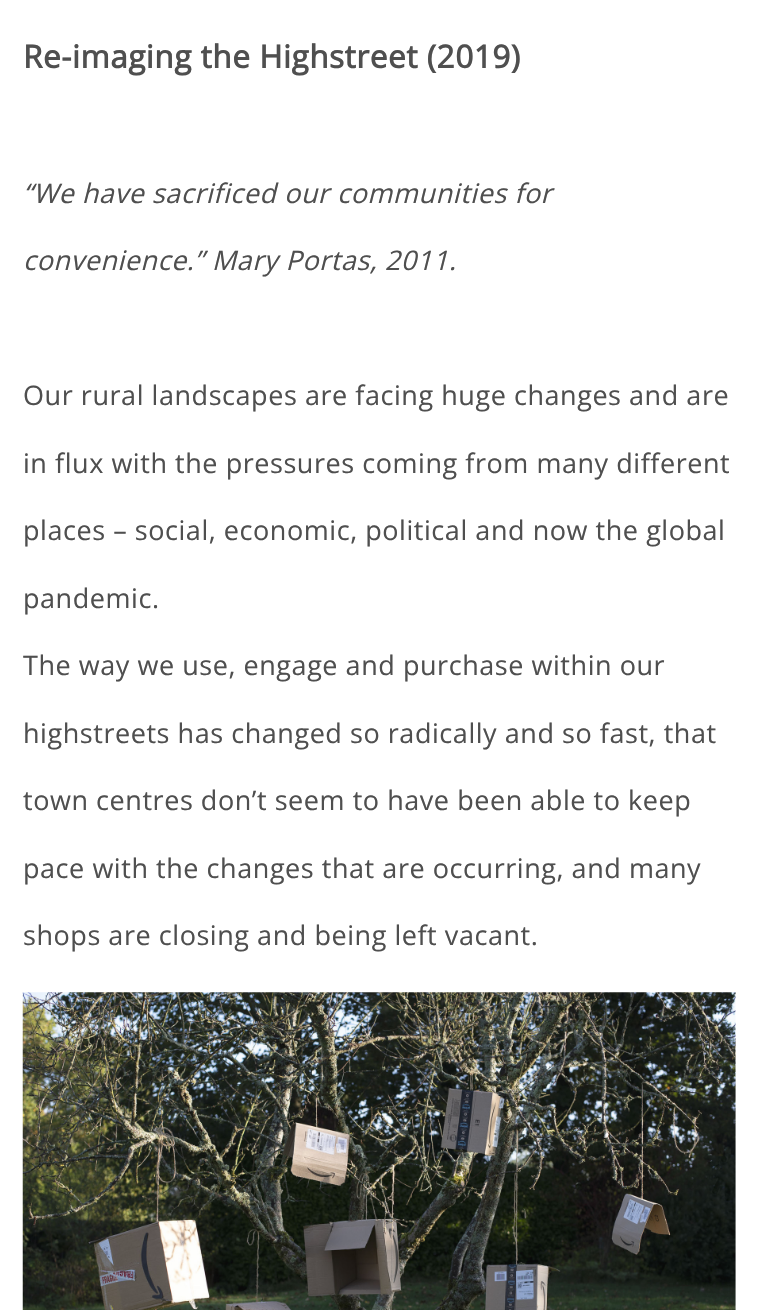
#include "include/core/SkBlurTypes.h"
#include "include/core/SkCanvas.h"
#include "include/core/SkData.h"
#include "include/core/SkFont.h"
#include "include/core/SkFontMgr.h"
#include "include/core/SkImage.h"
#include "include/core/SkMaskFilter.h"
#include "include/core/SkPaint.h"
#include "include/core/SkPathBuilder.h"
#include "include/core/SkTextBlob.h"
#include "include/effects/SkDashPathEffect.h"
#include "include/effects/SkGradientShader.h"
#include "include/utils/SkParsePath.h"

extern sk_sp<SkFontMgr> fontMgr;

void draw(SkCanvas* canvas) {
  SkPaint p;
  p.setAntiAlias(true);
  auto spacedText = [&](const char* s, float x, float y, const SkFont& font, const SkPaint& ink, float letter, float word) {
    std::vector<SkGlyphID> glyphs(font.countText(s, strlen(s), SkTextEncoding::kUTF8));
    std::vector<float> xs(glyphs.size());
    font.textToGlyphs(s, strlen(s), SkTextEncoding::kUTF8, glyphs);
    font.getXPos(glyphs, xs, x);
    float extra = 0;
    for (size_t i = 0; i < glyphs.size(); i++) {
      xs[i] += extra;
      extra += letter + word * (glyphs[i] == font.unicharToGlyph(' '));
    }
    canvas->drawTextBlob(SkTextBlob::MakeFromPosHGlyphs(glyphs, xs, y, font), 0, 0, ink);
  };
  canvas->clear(SK_ColorWHITE);
  canvas->drawImageRect(SkImages::DeferredFromEncodedData(SkData::MakeFromFileName("images/1.png")), SkRect::MakeLTRB(22, 992, 736, 1310), SkSamplingOptions());
  SkFont font1(fontMgr->matchFamilyStyle("Open Sans", SkFontStyle::Bold()), 31.5f);
  font1.setSubpixel(true);
  p.setColor(SkColorSetRGB(79, 79, 79));
  spacedText("Re-imaging the Highstreet (2019)", 23, 68, font1, p, 0.55f, 0);
  SkFont font2(fontMgr->matchFamilyStyle("Open Sans", SkFontStyle::Italic()), 27);
  font2.setSubpixel(true);
  spacedText("“We have sacrificed our communities for", 23, 203, font2, p, 0.55f, 0);
  spacedText("convenience.” Mary Portas, 2011.", 23, 270, font2, p, 0.55f, 0);
  SkFont font3(fontMgr->matchFamilyStyle("Open Sans", SkFontStyle::Normal()), 27);
  font3.setSubpixel(true);
  spacedText("Our rural landscapes are facing huge changes and are", 23, 405, font3, p, 0.55f, 0);
  spacedText("in flux with the pressures coming from many different", 23, 473, font3, p, 0.55f, 0);
  spacedText("places – social, economic, political and now the global", 23, 540, font3, p, 0.55f, 0);
  spacedText("pandemic.", 23, 608, font3, p, 0.55f, 0);
  spacedText("The way we use, engage and purchase within our", 23, 675, font3, p, 0.55f, 0);
  spacedText("highstreets has changed so radically and so fast, that", 23, 743, font3, p, 0.55f, 0);
  spacedText("town centres don’t seem to have been able to keep", 23, 810, font3, p, 0.55f, 0);
  spacedText("pace with the changes that are occurring, and many", 23, 878, font3, p, 0.55f, 0);
  spacedText("shops are closing and being left vacant.", 23, 945, font3, p, 0.55f, 0);
}
